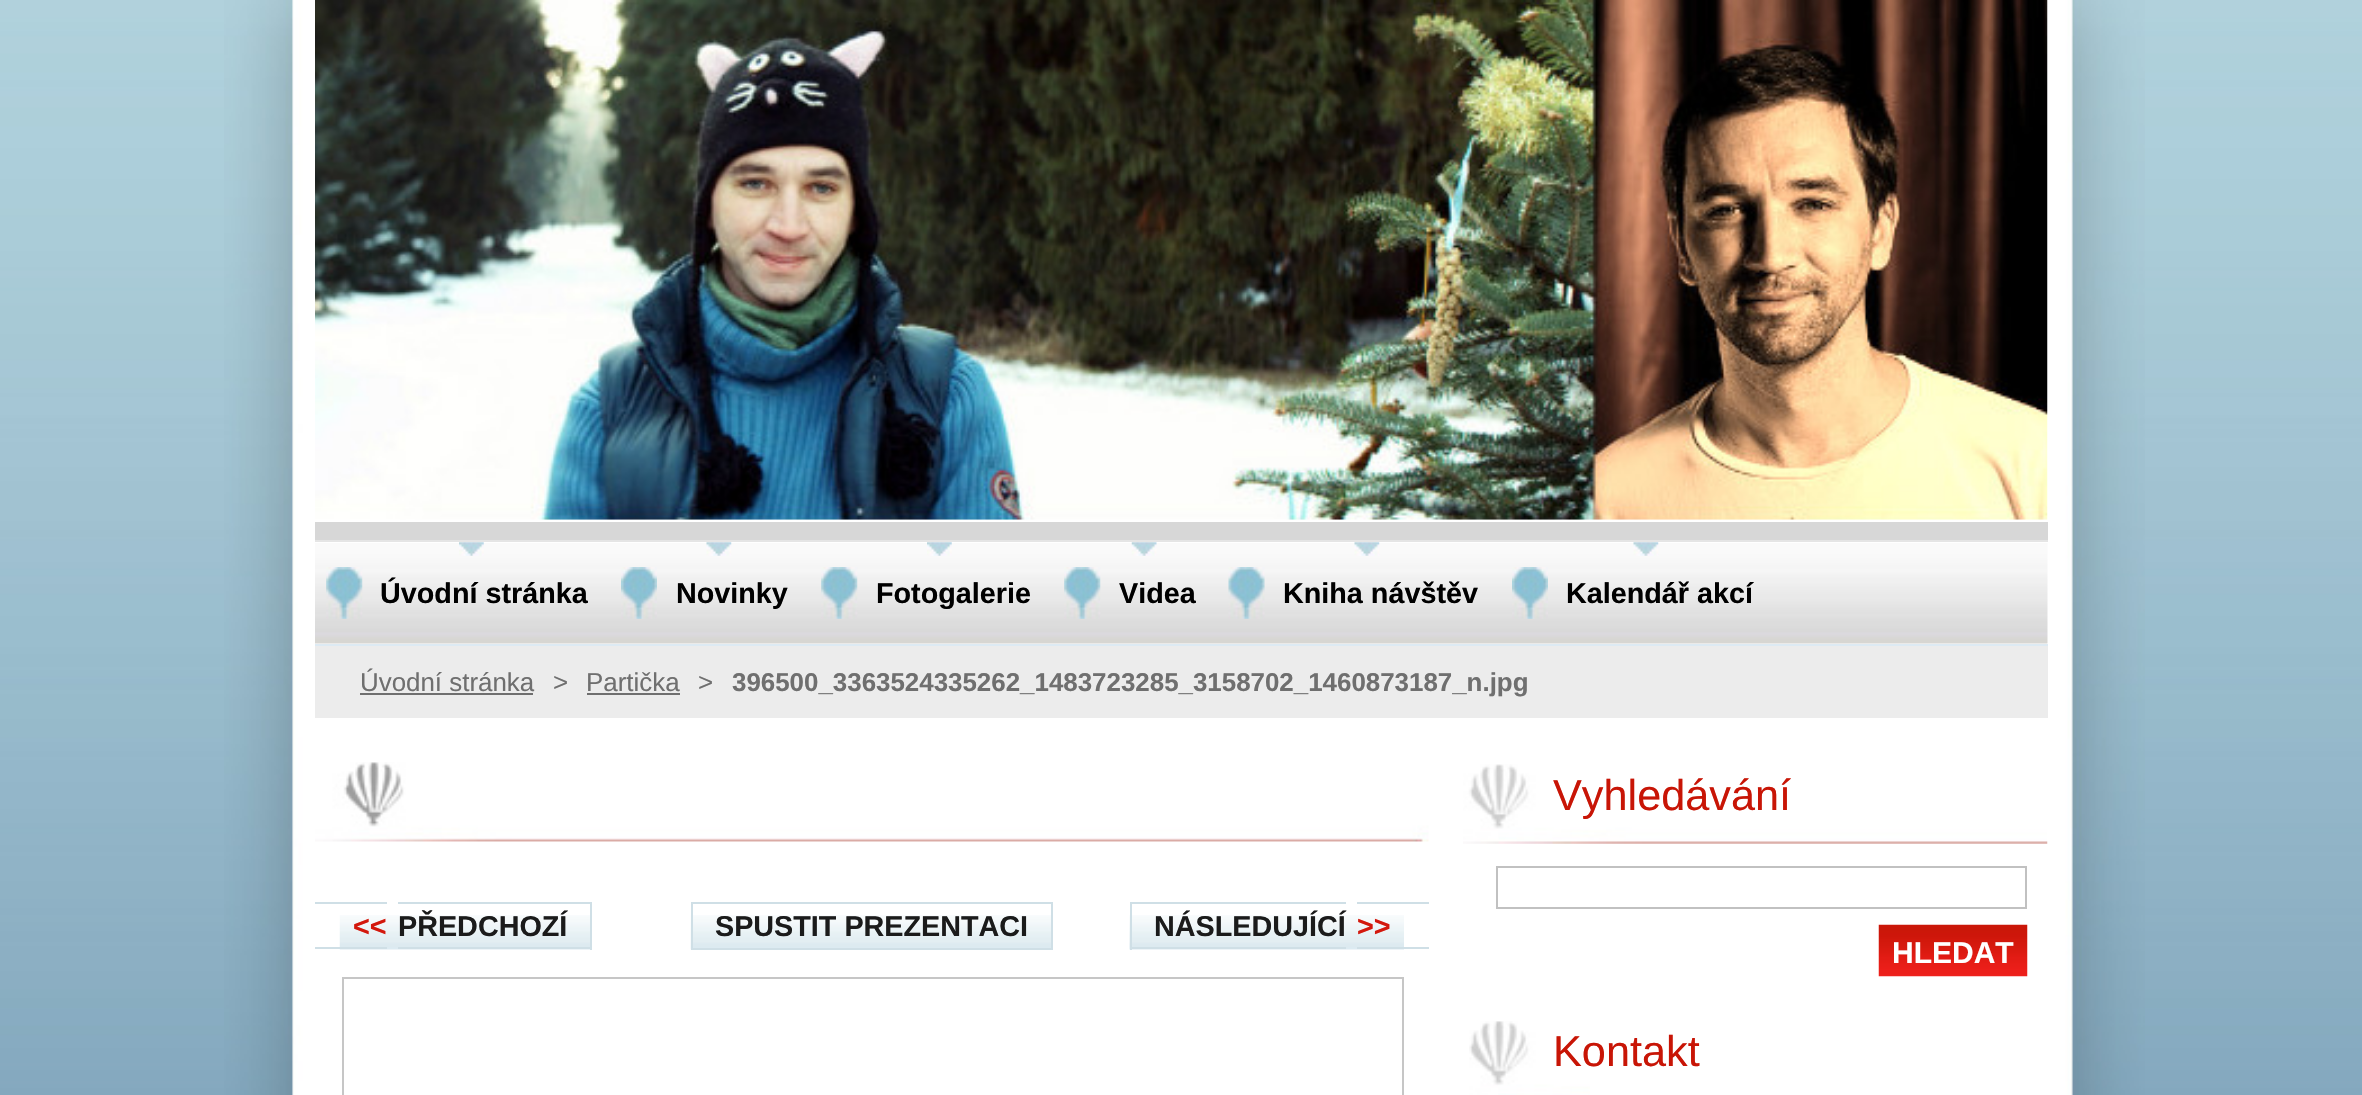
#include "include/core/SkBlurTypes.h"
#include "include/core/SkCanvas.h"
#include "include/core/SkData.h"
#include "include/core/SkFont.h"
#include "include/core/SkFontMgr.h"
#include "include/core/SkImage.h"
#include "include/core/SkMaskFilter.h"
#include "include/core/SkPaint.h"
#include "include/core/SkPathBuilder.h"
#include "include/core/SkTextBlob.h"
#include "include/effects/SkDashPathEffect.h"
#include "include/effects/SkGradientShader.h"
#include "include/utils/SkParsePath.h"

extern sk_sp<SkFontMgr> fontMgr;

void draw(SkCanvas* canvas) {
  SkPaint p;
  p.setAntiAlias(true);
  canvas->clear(SK_ColorWHITE);
  canvas->drawImageRect(SkImages::DeferredFromEncodedData(SkData::MakeFromFileName("images/1.png")), SkRect::MakeLTRB(0, 0, 2362, 1095), SkSamplingOptions());
  canvas->drawImageRect(SkImages::DeferredFromEncodedData(SkData::MakeFromFileName("images/2.png")), SkRect::MakeLTRB(224, 0, 2145, 1095), SkSamplingOptions());
  p.setColor(SkColorSetRGB(215, 215, 215));
  canvas->drawRect(SkRect::MakeLTRB(315, 522, 2048, 540), p);
  canvas->drawImageRect(SkImages::DeferredFromEncodedData(SkData::MakeFromFileName("images/3.png")), SkRect::MakeLTRB(315, 0, 2048, 520), SkSamplingOptions());
  canvas->drawImageRect(SkImages::DeferredFromEncodedData(SkData::MakeFromFileName("images/4.png")), SkRect::MakeLTRB(315, 543, 2048, 644), SkSamplingOptions());
  p.setColor(SkColorSetRGB(229, 229, 229));
  canvas->drawRect(SkRect::MakeLTRB(315, 540, 2048, 542), p);
  p.setColor(SkColorSetRGB(221, 234, 243));
  canvas->drawRect(SkRect::MakeLTRB(315, 644, 2048, 646), p);
  canvas->drawImageRect(SkImages::DeferredFromEncodedData(SkData::MakeFromFileName("images/5.png")), SkRect::MakeLTRB(326, 567, 363, 619), SkSamplingOptions());
  canvas->drawImageRect(SkImages::DeferredFromEncodedData(SkData::MakeFromFileName("images/6.png")), SkRect::MakeLTRB(459, 542, 484, 556), SkSamplingOptions());
  canvas->drawImageRect(SkImages::DeferredFromEncodedData(SkData::MakeFromFileName("images/7.png")), SkRect::MakeLTRB(621, 567, 657, 619), SkSamplingOptions());
  canvas->drawImageRect(SkImages::DeferredFromEncodedData(SkData::MakeFromFileName("images/8.png")), SkRect::MakeLTRB(706, 542, 732, 556), SkSamplingOptions());
  canvas->drawImageRect(SkImages::DeferredFromEncodedData(SkData::MakeFromFileName("images/9.png")), SkRect::MakeLTRB(821, 567, 858, 619), SkSamplingOptions());
  canvas->drawImageRect(SkImages::DeferredFromEncodedData(SkData::MakeFromFileName("images/6.png")), SkRect::MakeLTRB(927, 542, 952, 556), SkSamplingOptions());
  canvas->drawImageRect(SkImages::DeferredFromEncodedData(SkData::MakeFromFileName("images/9.png")), SkRect::MakeLTRB(1064, 567, 1101, 619), SkSamplingOptions());
  canvas->drawImageRect(SkImages::DeferredFromEncodedData(SkData::MakeFromFileName("images/10.png")), SkRect::MakeLTRB(1131, 542, 1157, 556), SkSamplingOptions());
  canvas->drawImageRect(SkImages::DeferredFromEncodedData(SkData::MakeFromFileName("images/11.png")), SkRect::MakeLTRB(1228, 567, 1265, 619), SkSamplingOptions());
  canvas->drawImageRect(SkImages::DeferredFromEncodedData(SkData::MakeFromFileName("images/8.png")), SkRect::MakeLTRB(1354, 542, 1380, 556), SkSamplingOptions());
  canvas->drawImageRect(SkImages::DeferredFromEncodedData(SkData::MakeFromFileName("images/12.png")), SkRect::MakeLTRB(1512, 567, 1548, 619), SkSamplingOptions());
  canvas->drawImageRect(SkImages::DeferredFromEncodedData(SkData::MakeFromFileName("images/8.png")), SkRect::MakeLTRB(1633, 542, 1659, 556), SkSamplingOptions());
  p.setColor(SkColorSetRGB(236, 236, 236));
  canvas->drawRect(SkRect::MakeLTRB(315, 646, 2048, 718), p);
  p.setColor(SkColorSetRGB(111, 111, 111));
  canvas->drawRect(SkRect::MakeLTRB(360, 693, 533, 695), p);
  canvas->drawRect(SkRect::MakeLTRB(587, 693, 680, 695), p);
  canvas->drawImageRect(SkImages::DeferredFromEncodedData(SkData::MakeFromFileName("images/13.png")), SkRect::MakeLTRB(315, 762, 1429, 842), SkSamplingOptions());
  canvas->drawImageRect(SkImages::DeferredFromEncodedData(SkData::MakeFromFileName("images/14.png")), SkRect::MakeLTRB(339, 915, 590, 950), SkSamplingOptions());
  p.setColor(SkColorSetRGB(207, 223, 230));
  canvas->drawRect(SkRect::MakeLTRB(315, 902, 387, 904), p);
  canvas->drawRect(SkRect::MakeLTRB(315, 947, 387, 949), p);
  canvas->drawRect(SkRect::MakeLTRB(398, 902, 592, 904), p);
  canvas->drawRect(SkRect::MakeLTRB(590, 902, 592, 950), p);
  canvas->drawRect(SkRect::MakeLTRB(398, 947, 592, 949), p);
  canvas->drawImageRect(SkImages::DeferredFromEncodedData(SkData::MakeFromFileName("images/15.png")), SkRect::MakeLTRB(690, 915, 1051, 950), SkSamplingOptions());
  p.setStyle(SkPaint::kStroke_Style);
  p.setStrokeWidth(2);
  canvas->drawRect(SkRect::MakeLTRB(692, 903, 1052, 949), p);
  canvas->drawImageRect(SkImages::DeferredFromEncodedData(SkData::MakeFromFileName("images/16.png")), SkRect::MakeLTRB(1129, 915, 1404, 950), SkSamplingOptions());
  p.setStyle(SkPaint::kFill_Style);
  canvas->drawRect(SkRect::MakeLTRB(1130, 902, 1346, 904), p);
  canvas->drawRect(SkRect::MakeLTRB(1130, 947, 1346, 949), p);
  canvas->drawRect(SkRect::MakeLTRB(1130, 902, 1132, 950), p);
  canvas->drawRect(SkRect::MakeLTRB(1357, 902, 1429, 904), p);
  canvas->drawRect(SkRect::MakeLTRB(1357, 947, 1429, 949), p);
  p.setStyle(SkPaint::kStroke_Style);
  p.setColor(SkColorSetRGB(198, 198, 198));
  canvas->drawRect(SkRect::MakeLTRB(343, 978, 1403, 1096), p);
  canvas->drawImageRect(SkImages::DeferredFromEncodedData(SkData::MakeFromFileName("images/17.png")), SkRect::MakeLTRB(1463, 764, 2048, 844), SkSamplingOptions());
  p.setColor(SkColorSetRGB(193, 193, 193));
  canvas->drawRect(SkRect::MakeLTRB(1497, 867, 2026, 908), p);
  canvas->drawImageRect(SkImages::DeferredFromEncodedData(SkData::MakeFromFileName("images/18.png")), SkRect::MakeLTRB(1878, 924, 2028, 977), SkSamplingOptions());
  canvas->drawImageRect(SkImages::DeferredFromEncodedData(SkData::MakeFromFileName("images/19.png")), SkRect::MakeLTRB(1469, 1021, 1590, 1095), SkSamplingOptions());
  SkFont font1(fontMgr->matchFamilyStyle("Liberation Sans", SkFontStyle::Bold()), 28.75f);
  font1.setSubpixel(true);
  p.setStyle(SkPaint::kFill_Style);
  p.setColor(SK_ColorBLACK);
  canvas->drawString("Úvodní stránka", 380, 603, font1, p);
  canvas->drawString("Novinky", 676, 603, font1, p);
  canvas->drawString("Fotogalerie", 876, 603, font1, p);
  canvas->drawString("Videa", 1119, 603, font1, p);
  canvas->drawString("Kniha návštěv", 1283, 603, font1, p);
  canvas->drawString("Kalendář akcí", 1566, 603, font1, p);
  SkFont font2(fontMgr->matchFamilyStyle("Liberation Sans", SkFontStyle::Normal()), 25.9f);
  font2.setSubpixel(true);
  p.setColor(SkColorSetRGB(111, 111, 111));
  canvas->drawString("Úvodní stránka", 360, 691, font2, p);
  canvas->drawString(">", 553, 691, font2, p);
  canvas->drawString("Partička", 586, 691, font2, p);
  canvas->drawString(">", 698, 691, font2, p);
  SkFont font3(fontMgr->matchFamilyStyle("Liberation Sans", SkFontStyle::Bold()), 25.9f);
  font3.setSubpixel(true);
  canvas->drawString("396500_3363524335262_1483723285_3158702_1460873187_n.jpg", 732, 691, font3, p);
  p.setColor(SkColorSetRGB(211, 24, 13));
  canvas->drawString("<<", 353, 936, font1, p);
  p.setColor(SkColorSetRGB(27, 27, 27));
  canvas->drawString("PŘEDCHOZÍ", 398, 936, font1, p);
  canvas->drawString("SPUSTIT PREZENTACI", 715, 936, font1, p);
  canvas->drawString("NÁSLEDUJÍCÍ", 1154, 936, font1, p);
  p.setColor(SkColorSetRGB(211, 24, 13));
  canvas->drawString(">>", 1357, 936, font1, p);
  SkFont font4(fontMgr->matchFamilyStyle("Liberation Sans", SkFontStyle::Normal()), 43.25f);
  font4.setSubpixel(true);
  p.setColor(SkColorSetRGB(200, 21, 6));
  canvas->drawString("Vyhledávání", 1553, 810, font4, p);
  SkFont font5(fontMgr->matchFamilyStyle("Liberation Sans", SkFontStyle::Bold()), 30);
  font5.setSubpixel(true);
  p.setColor(SK_ColorWHITE);
  canvas->drawString("HLEDAT", 1892, 963, font5, p);
  p.setColor(SkColorSetRGB(200, 21, 6));
  canvas->drawString("Kontakt", 1553, 1066, font4, p);
}
